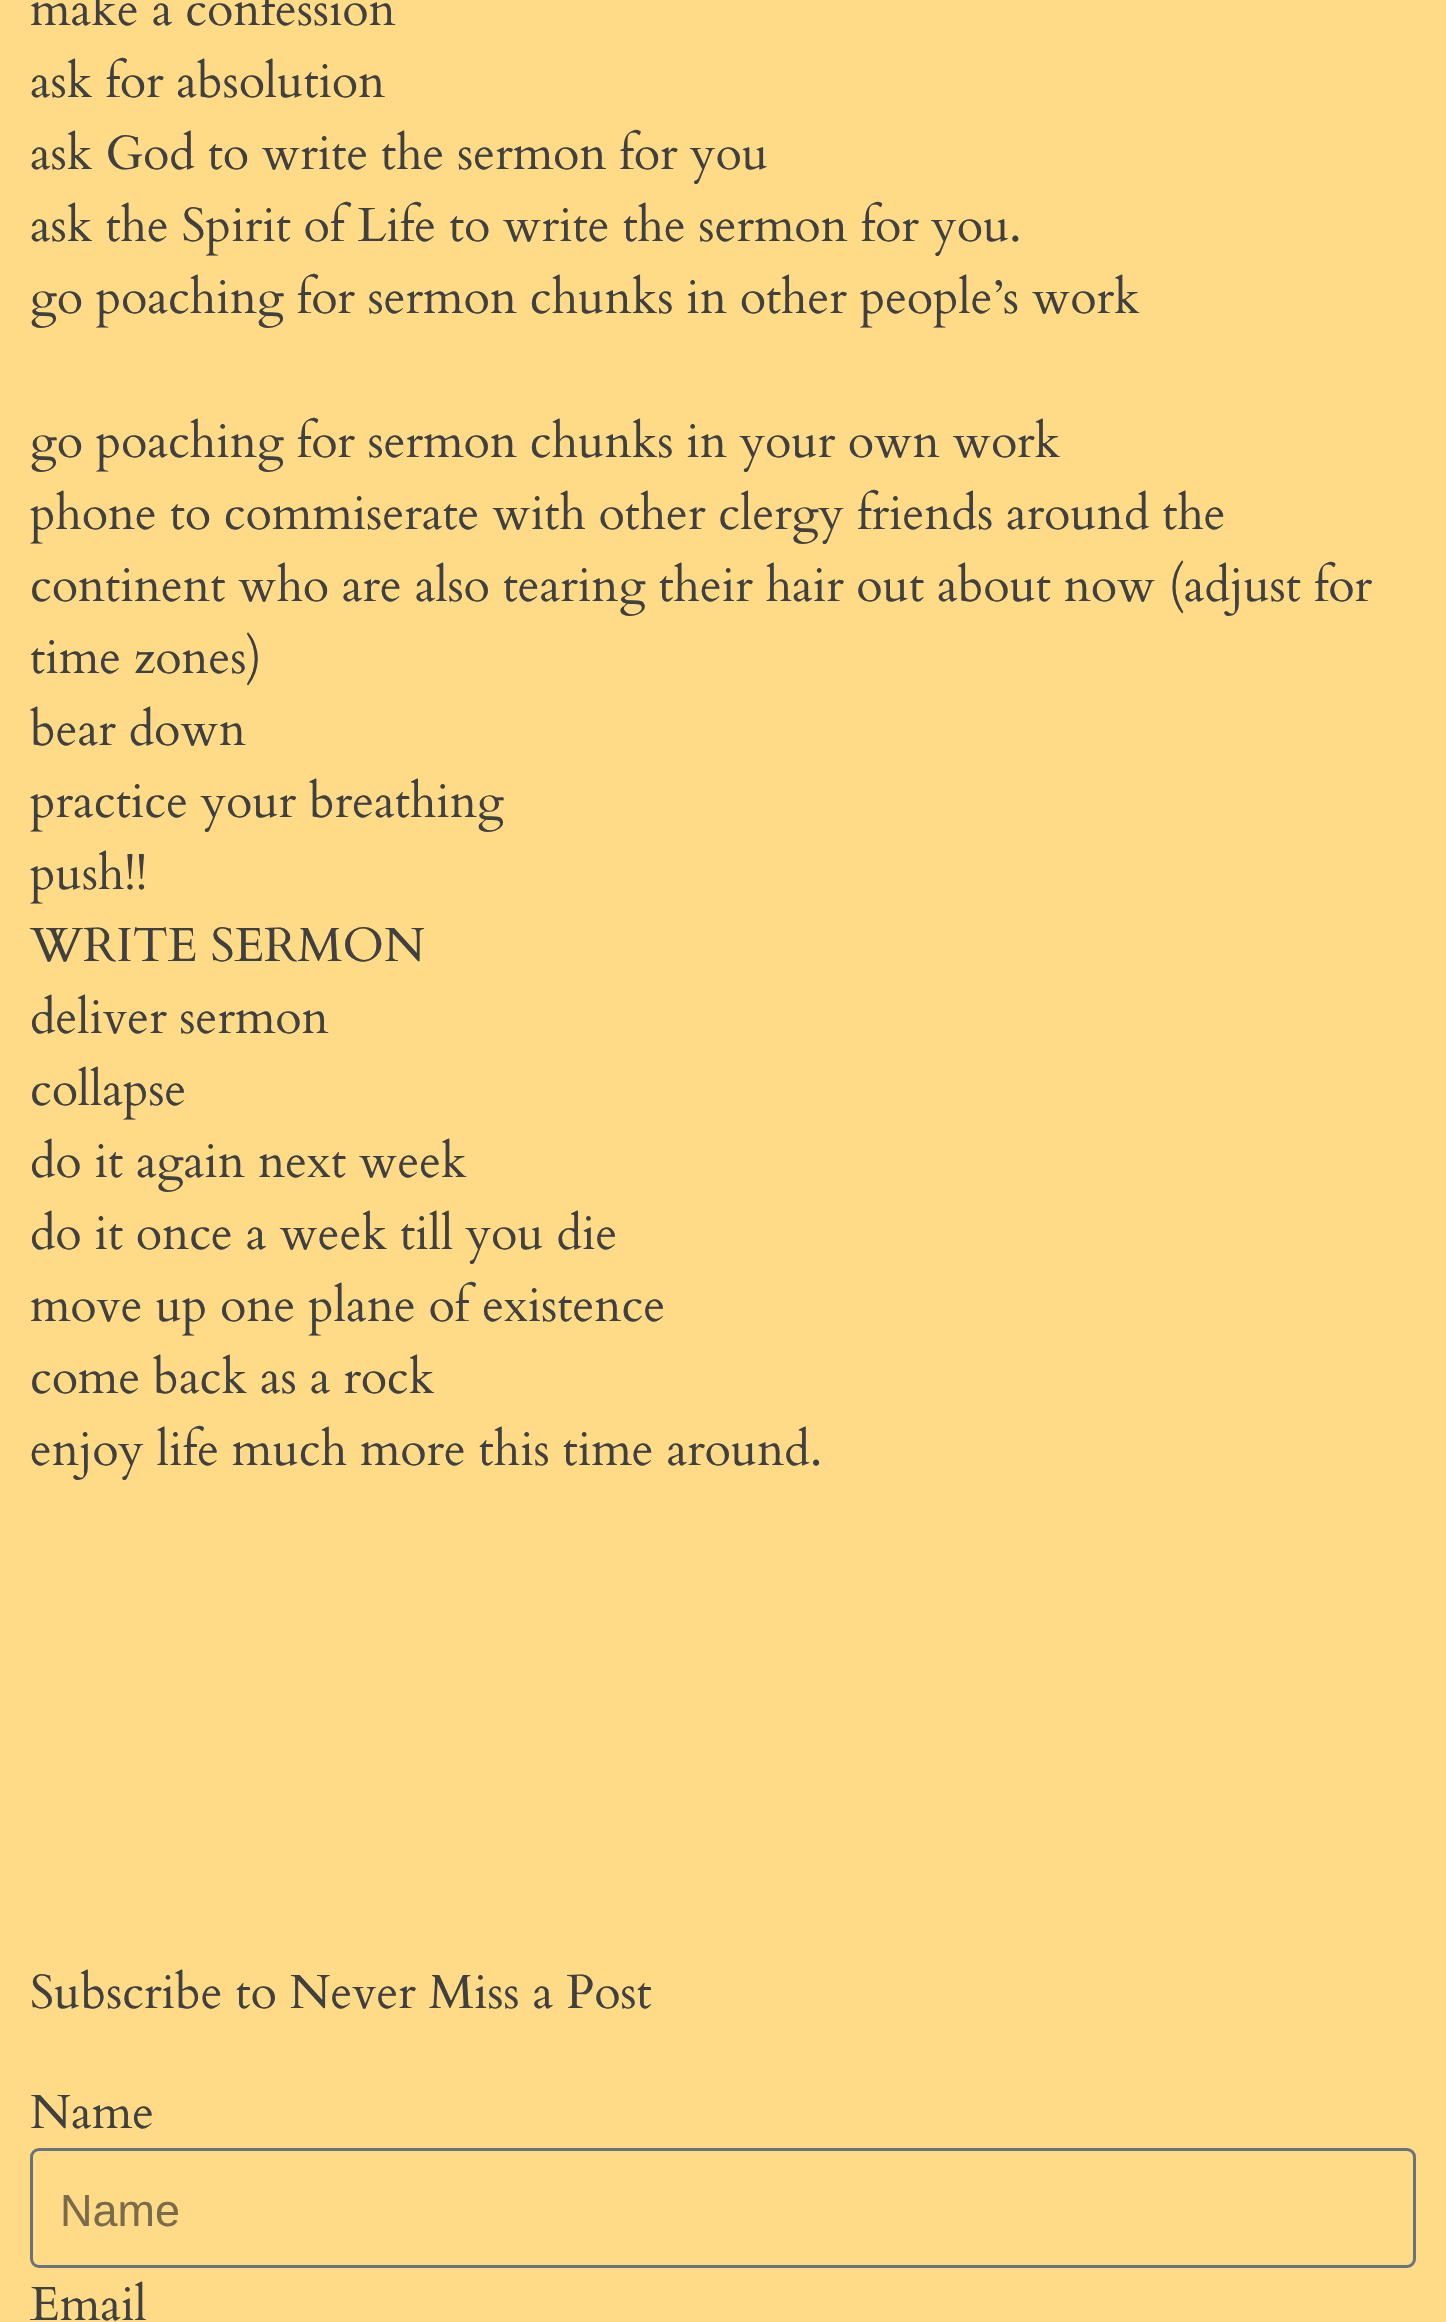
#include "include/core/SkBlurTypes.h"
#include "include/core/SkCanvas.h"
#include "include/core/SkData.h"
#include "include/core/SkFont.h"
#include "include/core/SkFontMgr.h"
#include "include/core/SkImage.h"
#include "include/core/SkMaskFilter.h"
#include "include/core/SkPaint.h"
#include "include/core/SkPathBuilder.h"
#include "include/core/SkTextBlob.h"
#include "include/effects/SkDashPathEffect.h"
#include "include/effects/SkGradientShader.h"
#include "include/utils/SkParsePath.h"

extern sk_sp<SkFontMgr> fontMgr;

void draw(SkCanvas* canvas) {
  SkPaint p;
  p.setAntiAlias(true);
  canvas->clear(SkColorSetRGB(255, 219, 135));
  p.setStyle(SkPaint::kStroke_Style);
  p.setStrokeWidth(3);
  p.setColor(SkColorSetRGB(105, 114, 125));
  canvas->drawRoundRect(SkRect::MakeLTRB(31.5f, 2149.5f, 1414.5f, 2266.5f), 7.5f, 7.5f, p);
  SkFont font1(fontMgr->matchFamilyStyle("Cardo", SkFontStyle::Normal()), 48);
  font1.setSubpixel(true);
  p.setStyle(SkPaint::kFill_Style);
  p.setColor(SkColorSetRGB(64, 64, 64));
  canvas->drawString("make a confession", 30, 25, font1, p);
  canvas->drawString("ask for absolution", 30, 97, font1, p);
  canvas->drawString("ask God to write the sermon for you", 30, 169, font1, p);
  canvas->drawString("ask the Spirit of Life to write the sermon for you.", 30, 241, font1, p);
  canvas->drawString("go poaching for sermon chunks in other people’s work", 30, 313, font1, p);
  canvas->drawString("go poaching for sermon chunks in your own work", 30, 457, font1, p);
  canvas->drawString("phone to commiserate with other clergy friends around the", 30, 529, font1, p);
  canvas->drawString("continent who are also tearing their hair out about now (adjust for", 30, 601, font1, p);
  canvas->drawString("time zones)", 30, 673, font1, p);
  canvas->drawString("bear down", 30, 745, font1, p);
  canvas->drawString("practice your breathing", 30, 817, font1, p);
  canvas->drawString("push!!", 30, 889, font1, p);
  canvas->drawString("WRITE SERMON", 30, 961, font1, p);
  canvas->drawString("deliver sermon", 30, 1033, font1, p);
  canvas->drawString("collapse", 30, 1105, font1, p);
  canvas->drawString("do it again next week", 30, 1177, font1, p);
  canvas->drawString("do it once a week till you die", 30, 1249, font1, p);
  canvas->drawString("move up one plane of existence", 30, 1321, font1, p);
  canvas->drawString("come back as a rock", 30, 1393, font1, p);
  canvas->drawString("enjoy life much more this time around.", 30, 1465, font1, p);
  canvas->drawString("Subscribe to Never Miss a Post", 30, 2008, font1, p);
  canvas->drawString("Name", 30, 2128, font1, p);
  SkFont font2(fontMgr->matchFamilyStyle("Liberation Sans", SkFontStyle::Normal()), 45);
  font2.setSubpixel(true);
  p.setColor(SkColorSetRGB(121, 107, 76));
  canvas->drawString("Name", 60, 2226, font2, p);
  p.setColor(SkColorSetRGB(64, 64, 64));
  canvas->drawString("Email", 30, 2320, font1, p);
}
